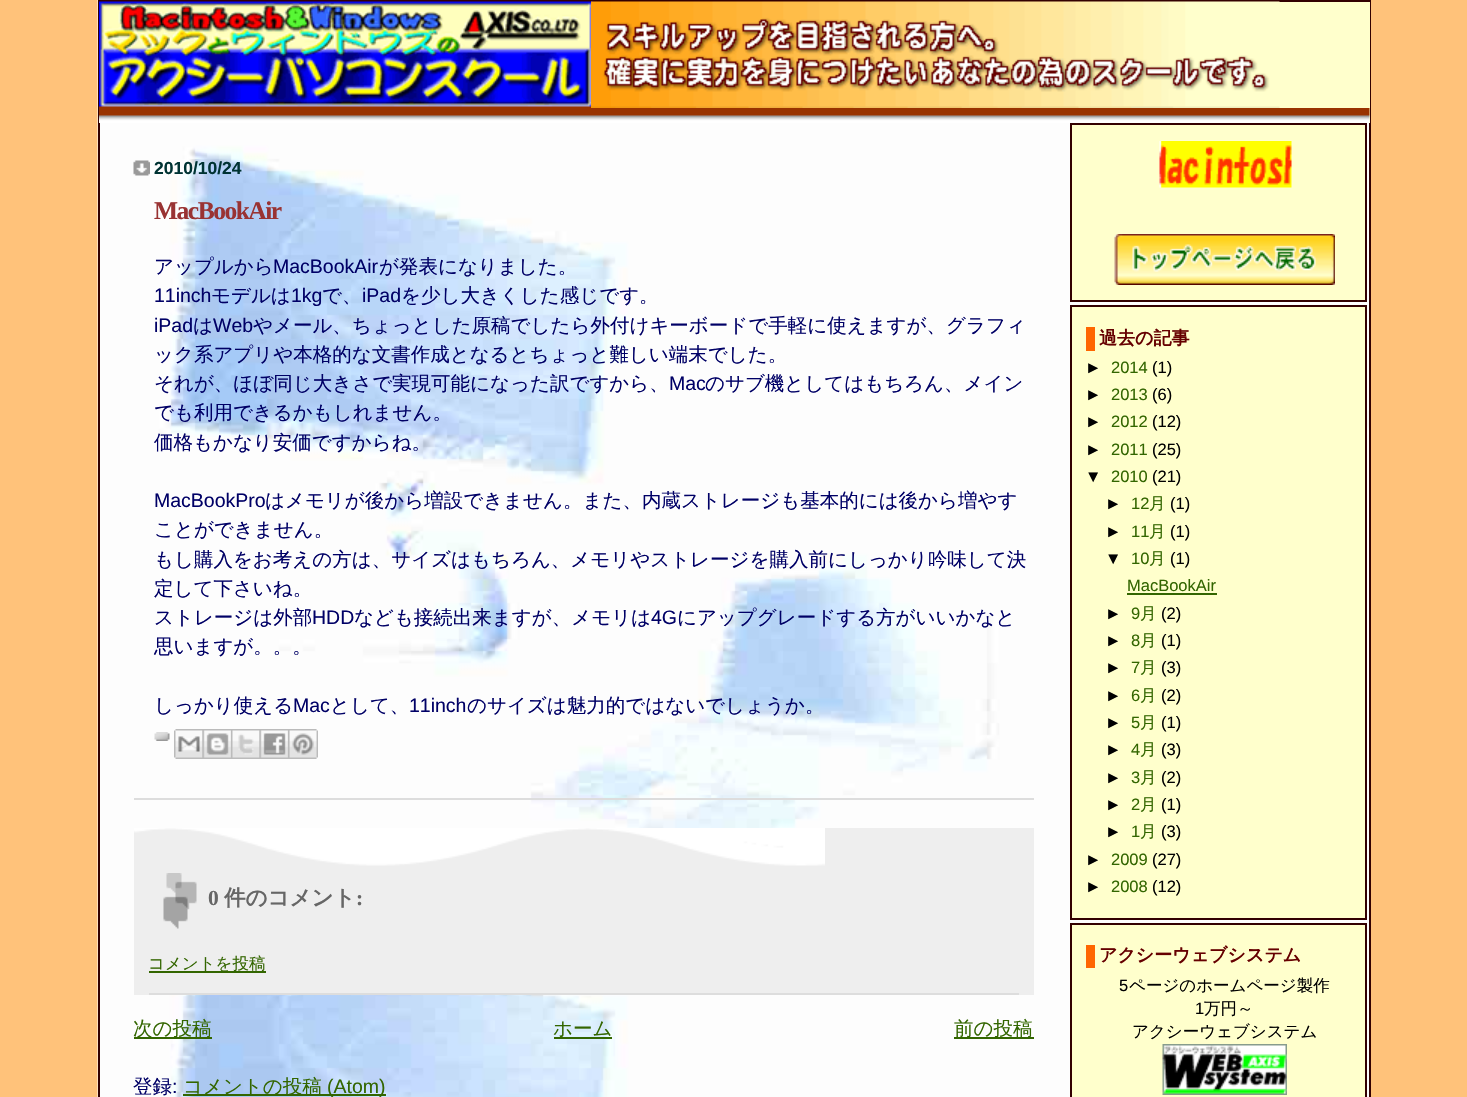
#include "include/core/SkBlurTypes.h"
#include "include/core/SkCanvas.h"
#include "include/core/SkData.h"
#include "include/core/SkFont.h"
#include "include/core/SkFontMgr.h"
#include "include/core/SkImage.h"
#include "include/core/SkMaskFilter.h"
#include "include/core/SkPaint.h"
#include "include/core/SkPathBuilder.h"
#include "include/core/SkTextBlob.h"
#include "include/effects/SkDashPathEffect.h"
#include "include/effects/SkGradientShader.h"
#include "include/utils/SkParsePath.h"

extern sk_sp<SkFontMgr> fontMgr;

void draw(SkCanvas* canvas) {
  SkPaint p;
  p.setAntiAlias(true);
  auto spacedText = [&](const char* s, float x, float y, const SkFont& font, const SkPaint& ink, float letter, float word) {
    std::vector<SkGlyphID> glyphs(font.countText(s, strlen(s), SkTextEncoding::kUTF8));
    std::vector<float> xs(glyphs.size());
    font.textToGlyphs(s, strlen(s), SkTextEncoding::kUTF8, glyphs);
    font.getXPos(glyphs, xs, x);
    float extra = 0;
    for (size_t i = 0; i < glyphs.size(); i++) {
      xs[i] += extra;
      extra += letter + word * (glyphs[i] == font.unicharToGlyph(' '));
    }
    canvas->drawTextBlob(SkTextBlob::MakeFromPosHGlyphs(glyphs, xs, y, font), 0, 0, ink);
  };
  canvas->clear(SkColorSetRGB(255, 194, 122));
  canvas->drawImageRect(SkImages::DeferredFromEncodedData(SkData::MakeFromFileName("images/1.png")), SkRect::MakeLTRB(97, 0, 1369, 1097), SkSamplingOptions());
  p.setStyle(SkPaint::kStroke_Style);
  p.setStrokeWidth(2);
  p.setColor(SkColorSetRGB(51, 0, 0));
  canvas->drawRect(SkRect::MakeLTRB(99, 1, 1370, 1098), p);
  p.setStyle(SkPaint::kFill_Style);
  p.setColor(SkColorSetRGB(255, 255, 204));
  canvas->drawRect(SkRect::MakeLTRB(1279, 2, 1370, 123), p);
  canvas->drawImageRect(SkImages::DeferredFromEncodedData(SkData::MakeFromFileName("images/2.png")), SkRect::MakeLTRB(99, 108, 1370, 123), SkSamplingOptions());
  canvas->drawImageRect(SkImages::DeferredFromEncodedData(SkData::MakeFromFileName("images/3.png")), SkRect::MakeLTRB(99, 1, 593, 108), SkSamplingOptions());
  canvas->drawImageRect(SkImages::DeferredFromEncodedData(SkData::MakeFromFileName("images/4.png")), SkRect::MakeLTRB(591, 1, 1280, 108), SkSamplingOptions());
  canvas->drawImageRect(SkImages::DeferredFromEncodedData(SkData::MakeFromFileName("images/5.png")), SkRect::MakeLTRB(133, 160, 150, 176), SkSamplingOptions());
  p.setColor(SkColorSetRGB(221, 221, 221));
  canvas->drawRect(SkRect::MakeLTRB(134, 798, 1034, 800), p);
  canvas->drawImageRect(SkImages::DeferredFromEncodedData(SkData::MakeFromFileName("images/6.png")), SkRect::MakeLTRB(154, 732, 170, 741), SkSamplingOptions());
  canvas->drawImageRect(SkImages::DeferredFromEncodedData(SkData::MakeFromFileName("images/7.png")), SkRect::MakeLTRB(174, 729, 203, 759), SkSamplingOptions());
  canvas->drawImageRect(SkImages::DeferredFromEncodedData(SkData::MakeFromFileName("images/8.png")), SkRect::MakeLTRB(202, 729, 231, 759), SkSamplingOptions());
  canvas->drawImageRect(SkImages::DeferredFromEncodedData(SkData::MakeFromFileName("images/9.png")), SkRect::MakeLTRB(231, 729, 260, 759), SkSamplingOptions());
  canvas->drawImageRect(SkImages::DeferredFromEncodedData(SkData::MakeFromFileName("images/10.png")), SkRect::MakeLTRB(259, 729, 288, 759), SkSamplingOptions());
  canvas->drawImageRect(SkImages::DeferredFromEncodedData(SkData::MakeFromFileName("images/11.png")), SkRect::MakeLTRB(288, 729, 318, 759), SkSamplingOptions());
  p.setColor(SkColorSetRGB(238, 238, 238));
  canvas->drawRect(SkRect::MakeLTRB(134, 828, 1034, 995), p);
  canvas->drawImageRect(SkImages::DeferredFromEncodedData(SkData::MakeFromFileName("images/12.png")), SkRect::MakeLTRB(134, 828, 825, 866), SkSamplingOptions());
  canvas->drawImageRect(SkImages::DeferredFromEncodedData(SkData::MakeFromFileName("images/13.png")), SkRect::MakeLTRB(163, 873, 197, 929), SkSamplingOptions());
  p.setColor(SkColorSetRGB(221, 221, 221));
  canvas->drawRect(SkRect::MakeLTRB(149, 993, 1019, 995), p);
  p.setColor(SkColorSetRGB(51, 102, 0));
  canvas->drawRect(SkRect::MakeLTRB(149, 971, 266, 973), p);
  canvas->drawRect(SkRect::MakeLTRB(134, 1037, 212, 1039), p);
  canvas->drawRect(SkRect::MakeLTRB(554, 1037, 612, 1039), p);
  canvas->drawRect(SkRect::MakeLTRB(954, 1037, 1034, 1039), p);
  canvas->drawRect(SkRect::MakeLTRB(183, 1094, 386, 1096), p);
  p.setColor(SkColorSetRGB(255, 255, 204));
  canvas->drawRect(SkRect::MakeLTRB(1071, 124, 1366, 301), p);
  p.setStyle(SkPaint::kStroke_Style);
  p.setColor(SkColorSetRGB(51, 0, 0));
  canvas->drawRect(SkRect::MakeLTRB(1071, 124, 1366, 301), p);
  canvas->drawImageRect(SkImages::DeferredFromEncodedData(SkData::MakeFromFileName("images/14.png")), SkRect::MakeLTRB(1159, 141, 1292, 188), SkSamplingOptions());
  canvas->drawImageRect(SkImages::DeferredFromEncodedData(SkData::MakeFromFileName("images/15.png")), SkRect::MakeLTRB(1114, 234, 1335, 285), SkSamplingOptions());
  p.setStyle(SkPaint::kFill_Style);
  p.setColor(SkColorSetRGB(255, 255, 204));
  canvas->drawRect(SkRect::MakeLTRB(1071, 306, 1366, 919), p);
  p.setStyle(SkPaint::kStroke_Style);
  p.setColor(SkColorSetRGB(51, 0, 0));
  canvas->drawRect(SkRect::MakeLTRB(1071, 306, 1366, 919), p);
  p.setStyle(SkPaint::kFill_Style);
  p.setColor(SkColorSetRGB(255, 102, 0));
  canvas->drawRect(SkRect::MakeLTRB(1086, 327, 1095, 351), p);
  p.setColor(SkColorSetRGB(51, 102, 0));
  canvas->drawRect(SkRect::MakeLTRB(1127, 593, 1217, 595), p);
  p.setColor(SkColorSetRGB(255, 255, 204));
  canvas->drawRect(SkRect::MakeLTRB(1071, 924, 1366, 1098), p);
  p.setStyle(SkPaint::kStroke_Style);
  p.setColor(SkColorSetRGB(51, 0, 0));
  canvas->drawRect(SkRect::MakeLTRB(1071, 924, 1366, 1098), p);
  p.setStyle(SkPaint::kFill_Style);
  p.setColor(SkColorSetRGB(255, 102, 0));
  canvas->drawRect(SkRect::MakeLTRB(1086, 945, 1095, 968), p);
  canvas->drawImageRect(SkImages::DeferredFromEncodedData(SkData::MakeFromFileName("images/16.png")), SkRect::MakeLTRB(1162, 1044, 1287, 1095), SkSamplingOptions());
  SkFont font1(fontMgr->matchFamilyStyle("Liberation Sans", SkFontStyle::Bold()), 17.5f);
  font1.setSubpixel(true);
  p.setColor(SkColorSetRGB(0, 51, 51));
  canvas->drawString("2010/10/24", 154, 174, font1, p);
  SkFont font2(fontMgr->matchFamilyStyle("Liberation Serif", SkFontStyle::Bold()), 25.5f);
  font2.setSubpixel(true);
  p.setColor(SkColorSetRGB(153, 51, 51));
  spacedText("MacBookAir", 154, 219, font2, p, -1.5f, 0);
  SkFont font3(fontMgr->matchFamilyStyle("WenQuanYi Zen Hei", SkFontStyle(500, SkFontStyle::kNormal_Width, SkFontStyle::kUpright_Slant)), 19.5f);
  font3.setSubpixel(true);
  p.setColor(SkColorSetRGB(0, 0, 102));
  canvas->drawString("アップルから", 154, 273, font3, p);
  SkFont font4(fontMgr->matchFamilyStyle("Liberation Sans", SkFontStyle::Normal()), 19.5f);
  font4.setSubpixel(true);
  canvas->drawString("MacBookAir", 273, 273, font4, p);
  canvas->drawString("が発表になりました。", 379, 273, font3, p);
  canvas->drawString("11inch", 154, 302, font4, p);
  canvas->drawString("モデルは", 211, 302, font3, p);
  canvas->drawString("1kg", 291, 302, font4, p);
  canvas->drawString("で、", 322, 302, font3, p);
  canvas->drawString("iPad", 362, 302, font4, p);
  canvas->drawString("を少し大きくした感じです。", 401, 302, font3, p);
  canvas->drawString("iPad", 154, 332, font4, p);
  canvas->drawString("は", 193, 332, font3, p);
  canvas->drawString("Web", 213, 332, font4, p);
  canvas->drawString("やメール、ちょっとした原稿でしたら外付けキーボードで手軽に使えますが、グラフィ", 253, 332, font3, p);
  canvas->drawString("ック系アプリや本格的な文書作成となるとちょっと難しい端末でした。", 154, 361, font3, p);
  canvas->drawString("それが、ほぼ同じ大きさで実現可能になった訳ですから、", 154, 390, font3, p);
  canvas->drawString("Mac", 669, 390, font4, p);
  canvas->drawString("のサブ機としてはもちろん、メイン", 705, 390, font3, p);
  canvas->drawString("でも利用できるかもしれません。", 154, 419, font3, p);
  canvas->drawString("価格もかなり安価ですからね。", 154, 449, font3, p);
  canvas->drawString("MacBookPro", 154, 507, font4, p);
  canvas->drawString("はメモリが後から増設できません。また、内蔵ストレージも基本的には後から増やす", 265, 507, font3, p);
  canvas->drawString("ことができません。", 154, 536, font3, p);
  canvas->drawString("もし購入をお考えの方は、サイズはもちろん、メモリやストレージを購入前にしっかり吟味して決", 154, 566, font3, p);
  canvas->drawString("定して下さいね。", 154, 595, font3, p);
  canvas->drawString("ストレージは外部", 154, 624, font3, p);
  canvas->drawString("HDD", 312, 624, font4, p);
  canvas->drawString("なども接続出来ますが、メモリは", 354, 624, font3, p);
  canvas->drawString("4G", 651, 624, font4, p);
  canvas->drawString("にアップグレードする方がいいかなと", 677, 624, font3, p);
  canvas->drawString("思いますが。。。", 154, 653, font3, p);
  canvas->drawString("しっかり使える", 154, 712, font3, p);
  canvas->drawString("Mac", 293, 712, font4, p);
  canvas->drawString("として、", 330, 712, font3, p);
  canvas->drawString("11inch", 409, 712, font4, p);
  canvas->drawString("のサイズは魅力的ではないでしょうか。", 467, 712, font3, p);
  SkFont font5(fontMgr->matchFamilyStyle("Liberation Serif", SkFontStyle::Bold()), 21.5f);
  font5.setSubpixel(true);
  p.setColor(SkColorSetRGB(102, 102, 102));
  canvas->drawString("0", 208, 905, font5, p);
  SkFont font6(fontMgr->matchFamilyStyle("WenQuanYi Zen Hei", SkFontStyle::Bold()), 21.5f);
  font6.setSubpixel(true);
  canvas->drawString("件のコメント", 224, 905, font6, p);
  canvas->drawString(":", 356, 905, font5, p);
  SkFont font7(fontMgr->matchFamilyStyle("WenQuanYi Zen Hei", SkFontStyle(500, SkFontStyle::kNormal_Width, SkFontStyle::kUpright_Slant)), 16.5f);
  font7.setSubpixel(true);
  p.setColor(SkColorSetRGB(51, 102, 0));
  canvas->drawString("コメントを投稿", 148, 969, font7, p);
  canvas->drawString("次の投稿", 133, 1035, font3, p);
  canvas->drawString("ホーム", 553, 1035, font3, p);
  canvas->drawString("前の投稿", 954, 1035, font3, p);
  p.setColor(SkColorSetRGB(0, 0, 102));
  canvas->drawString("登録", 133, 1093, font3, p);
  canvas->drawString(":", 172, 1093, font4, p);
  p.setColor(SkColorSetRGB(51, 102, 0));
  canvas->drawString("コメントの投稿", 183, 1093, font3, p);
  canvas->drawString("(Atom)", 327, 1093, font4, p);
  SkFont font8(fontMgr->matchFamilyStyle("WenQuanYi Zen Hei", SkFontStyle::Bold()), 18);
  font8.setSubpixel(true);
  p.setColor(SkColorSetRGB(102, 0, 0));
  canvas->drawString("過去の記事", 1099, 344, font8, p);
  SkFont font9(fontMgr->matchFamilyStyle("Liberation Sans", SkFontStyle::Normal()), 16.5f);
  font9.setSubpixel(true);
  p.setColor(SK_ColorBLACK);
  canvas->drawString("►", 1085, 373, font9, p);
  p.setColor(SkColorSetRGB(51, 102, 0));
  canvas->drawString("2014", 1111, 373, font9, p);
  p.setColor(SK_ColorBLACK);
  canvas->drawString("(1)", 1152, 373, font9, p);
  canvas->drawString("►", 1085, 400, font9, p);
  p.setColor(SkColorSetRGB(51, 102, 0));
  canvas->drawString("2013", 1111, 400, font9, p);
  p.setColor(SK_ColorBLACK);
  canvas->drawString("(6)", 1152, 400, font9, p);
  canvas->drawString("►", 1085, 427, font9, p);
  p.setColor(SkColorSetRGB(51, 102, 0));
  canvas->drawString("2012", 1111, 427, font9, p);
  p.setColor(SK_ColorBLACK);
  canvas->drawString("(12)", 1152, 427, font9, p);
  canvas->drawString("►", 1085, 455, font9, p);
  p.setColor(SkColorSetRGB(51, 102, 0));
  canvas->drawString("2011", 1111, 455, font9, p);
  p.setColor(SK_ColorBLACK);
  canvas->drawString("(25)", 1152, 455, font9, p);
  canvas->drawString("▼", 1085, 482, font9, p);
  p.setColor(SkColorSetRGB(51, 102, 0));
  canvas->drawString("2010", 1111, 482, font9, p);
  p.setColor(SK_ColorBLACK);
  canvas->drawString("(21)", 1152, 482, font9, p);
  canvas->drawString("►", 1105, 509, font9, p);
  p.setColor(SkColorSetRGB(51, 102, 0));
  canvas->drawString("12", 1131, 509, font9, p);
  canvas->drawString("月", 1149, 509, font7, p);
  p.setColor(SK_ColorBLACK);
  canvas->drawString("(1)", 1170, 509, font9, p);
  canvas->drawString("►", 1105, 537, font9, p);
  p.setColor(SkColorSetRGB(51, 102, 0));
  canvas->drawString("11", 1131, 537, font9, p);
  canvas->drawString("月", 1149, 537, font7, p);
  p.setColor(SK_ColorBLACK);
  canvas->drawString("(1)", 1170, 537, font9, p);
  canvas->drawString("▼", 1105, 564, font9, p);
  p.setColor(SkColorSetRGB(51, 102, 0));
  canvas->drawString("10", 1131, 564, font9, p);
  canvas->drawString("月", 1149, 564, font7, p);
  p.setColor(SK_ColorBLACK);
  canvas->drawString("(1)", 1170, 564, font9, p);
  p.setColor(SkColorSetRGB(51, 102, 0));
  canvas->drawString("MacBookAir", 1127, 591, font9, p);
  p.setColor(SK_ColorBLACK);
  canvas->drawString("►", 1105, 619, font9, p);
  p.setColor(SkColorSetRGB(51, 102, 0));
  canvas->drawString("9", 1131, 619, font9, p);
  canvas->drawString("月", 1140, 619, font7, p);
  p.setColor(SK_ColorBLACK);
  canvas->drawString("(2)", 1161, 619, font9, p);
  canvas->drawString("►", 1105, 646, font9, p);
  p.setColor(SkColorSetRGB(51, 102, 0));
  canvas->drawString("8", 1131, 646, font9, p);
  canvas->drawString("月", 1140, 646, font7, p);
  p.setColor(SK_ColorBLACK);
  canvas->drawString("(1)", 1161, 646, font9, p);
  canvas->drawString("►", 1105, 673, font9, p);
  p.setColor(SkColorSetRGB(51, 102, 0));
  canvas->drawString("7", 1131, 673, font9, p);
  canvas->drawString("月", 1140, 673, font7, p);
  p.setColor(SK_ColorBLACK);
  canvas->drawString("(3)", 1161, 673, font9, p);
  canvas->drawString("►", 1105, 701, font9, p);
  p.setColor(SkColorSetRGB(51, 102, 0));
  canvas->drawString("6", 1131, 701, font9, p);
  canvas->drawString("月", 1140, 701, font7, p);
  p.setColor(SK_ColorBLACK);
  canvas->drawString("(2)", 1161, 701, font9, p);
  canvas->drawString("►", 1105, 728, font9, p);
  p.setColor(SkColorSetRGB(51, 102, 0));
  canvas->drawString("5", 1131, 728, font9, p);
  canvas->drawString("月", 1140, 728, font7, p);
  p.setColor(SK_ColorBLACK);
  canvas->drawString("(1)", 1161, 728, font9, p);
  canvas->drawString("►", 1105, 755, font9, p);
  p.setColor(SkColorSetRGB(51, 102, 0));
  canvas->drawString("4", 1131, 755, font9, p);
  canvas->drawString("月", 1140, 755, font7, p);
  p.setColor(SK_ColorBLACK);
  canvas->drawString("(3)", 1161, 755, font9, p);
  canvas->drawString("►", 1105, 783, font9, p);
  p.setColor(SkColorSetRGB(51, 102, 0));
  canvas->drawString("3", 1131, 783, font9, p);
  canvas->drawString("月", 1140, 783, font7, p);
  p.setColor(SK_ColorBLACK);
  canvas->drawString("(2)", 1161, 783, font9, p);
  canvas->drawString("►", 1105, 810, font9, p);
  p.setColor(SkColorSetRGB(51, 102, 0));
  canvas->drawString("2", 1131, 810, font9, p);
  canvas->drawString("月", 1140, 810, font7, p);
  p.setColor(SK_ColorBLACK);
  canvas->drawString("(1)", 1161, 810, font9, p);
  canvas->drawString("►", 1105, 837, font9, p);
  p.setColor(SkColorSetRGB(51, 102, 0));
  canvas->drawString("1", 1131, 837, font9, p);
  canvas->drawString("月", 1140, 837, font7, p);
  p.setColor(SK_ColorBLACK);
  canvas->drawString("(3)", 1161, 837, font9, p);
  canvas->drawString("►", 1085, 865, font9, p);
  p.setColor(SkColorSetRGB(51, 102, 0));
  canvas->drawString("2009", 1111, 865, font9, p);
  p.setColor(SK_ColorBLACK);
  canvas->drawString("(27)", 1152, 865, font9, p);
  canvas->drawString("►", 1085, 892, font9, p);
  p.setColor(SkColorSetRGB(51, 102, 0));
  canvas->drawString("2008", 1111, 892, font9, p);
  p.setColor(SK_ColorBLACK);
  canvas->drawString("(12)", 1152, 892, font9, p);
  p.setColor(SkColorSetRGB(102, 0, 0));
  canvas->drawString("アクシーウェブシステム", 1099, 961, font8, p);
  p.setColor(SK_ColorBLACK);
  canvas->drawString("5", 1119, 991, font9, p);
  canvas->drawString("ページのホームページ製作", 1129, 991, font7, p);
  canvas->drawString("1", 1195, 1014, font9, p);
  canvas->drawString("万円～", 1204, 1014, font7, p);
  canvas->drawString("アクシーウェブシステム", 1132, 1037, font7, p);
}
